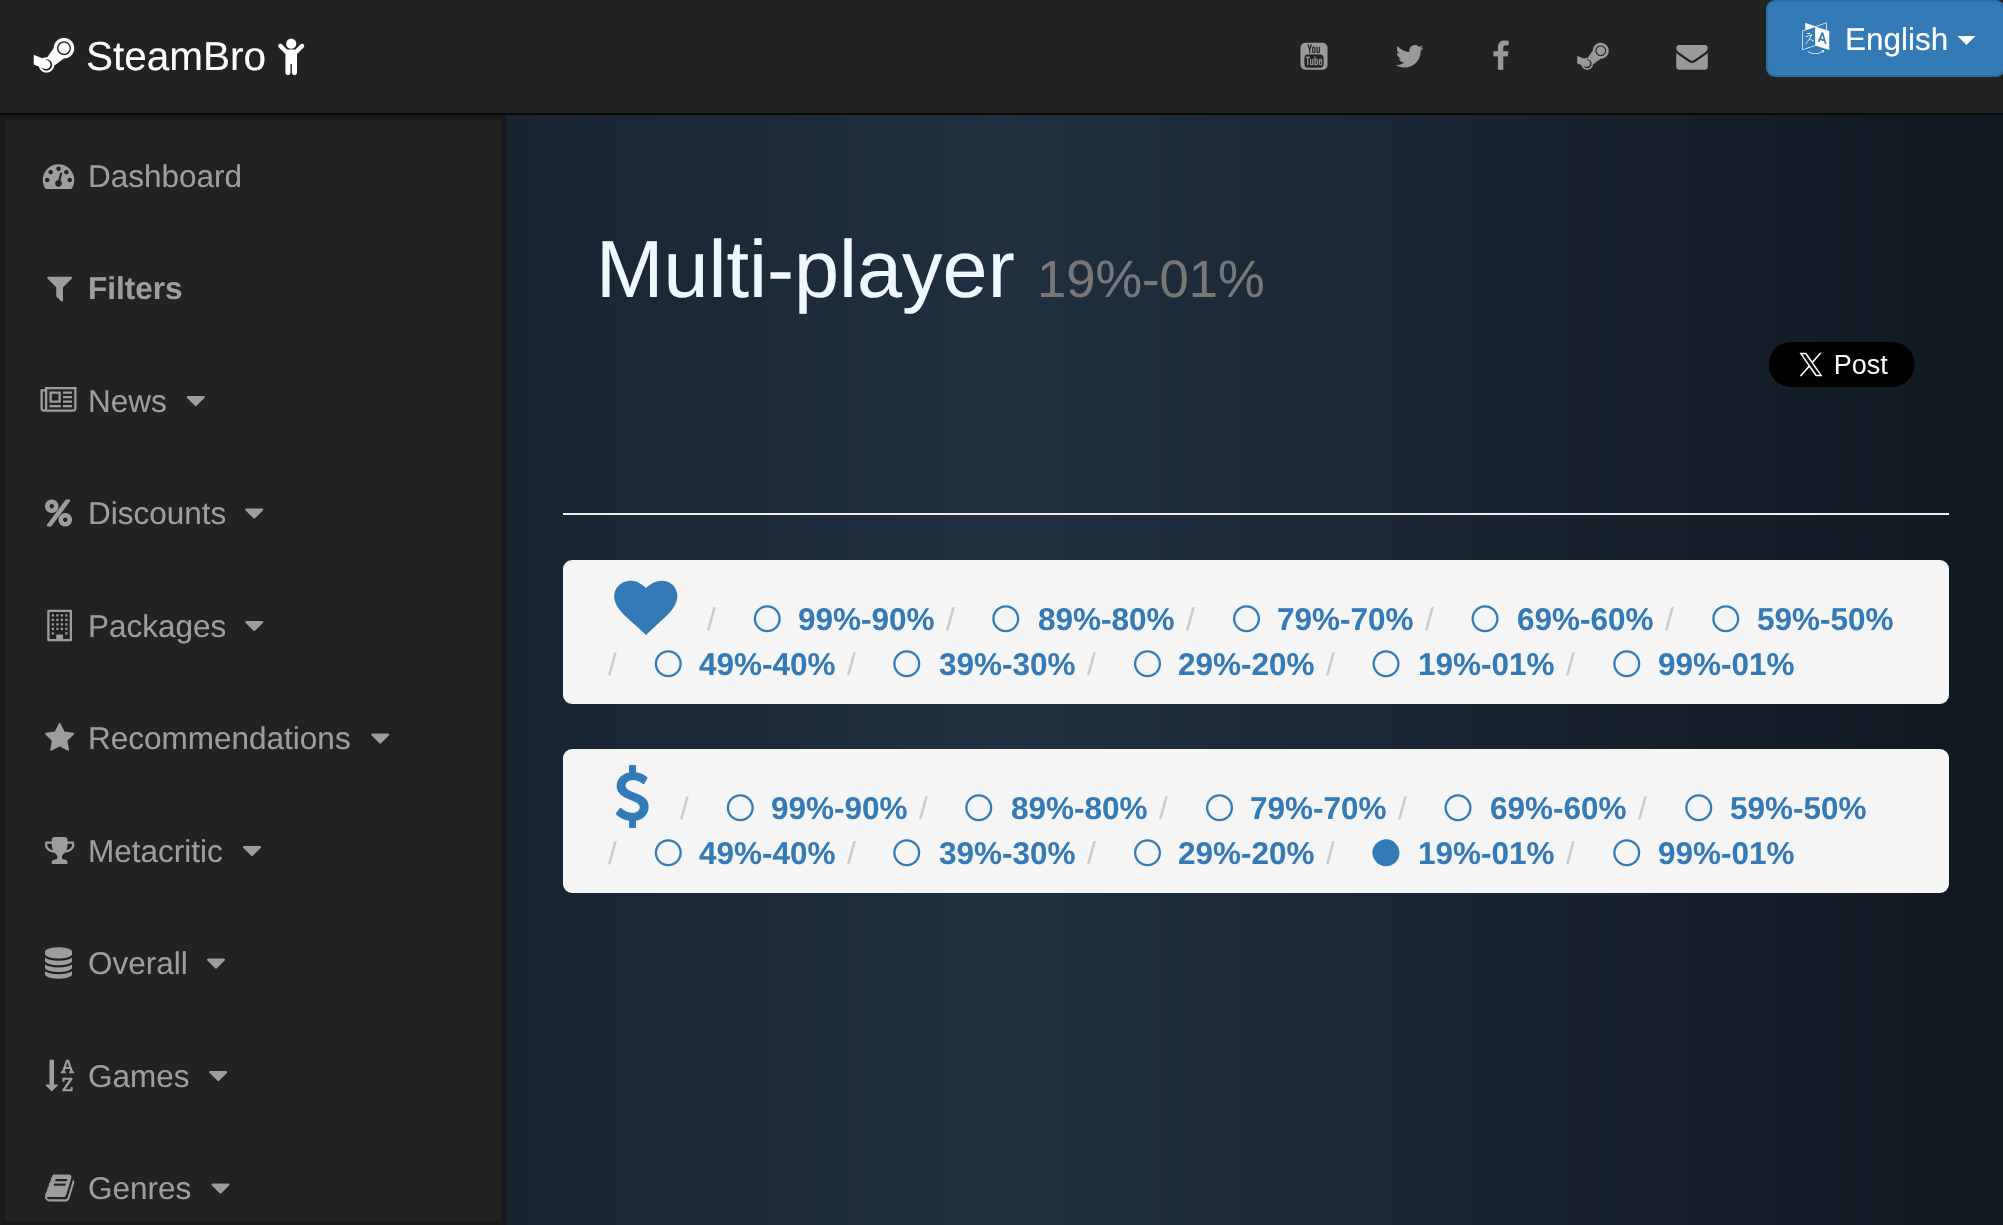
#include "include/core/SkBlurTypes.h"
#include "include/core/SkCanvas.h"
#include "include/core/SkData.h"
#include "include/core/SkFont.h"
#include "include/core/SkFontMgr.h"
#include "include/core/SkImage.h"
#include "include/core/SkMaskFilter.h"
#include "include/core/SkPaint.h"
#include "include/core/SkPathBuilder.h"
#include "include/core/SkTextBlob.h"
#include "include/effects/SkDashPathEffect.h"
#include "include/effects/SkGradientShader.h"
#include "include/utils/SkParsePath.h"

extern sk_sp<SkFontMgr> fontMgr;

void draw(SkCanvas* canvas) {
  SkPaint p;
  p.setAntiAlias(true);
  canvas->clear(SK_ColorWHITE);
  {
    const SkColor colors[] = {SkColorSetRGB(16, 24, 32), SkColorSetRGB(32, 48, 64), SkColorSetRGB(16, 24, 32)};
    const float stops[] = {0, 0.5f, 1};
    const SkPoint ends[] = {{0, 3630}, {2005, 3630}};
    p.setShader(SkGradientShader::MakeLinear(ends, colors, stops, 3, SkTileMode::kClamp));
    p.setAlpha(255);
  }
  canvas->drawRect(SkRect::MakeLTRB(506, 115, 2003, 1225), p);
  p.setShader(nullptr);
  p.setColor(SkColorSetRGB(34, 34, 34));
  canvas->drawRect(SkRect::MakeLTRB(0, 0, 2003, 113), p);
  p.setColor(SkColorSetRGB(8, 8, 8));
  canvas->drawRect(SkRect::MakeLTRB(0, 113, 2003, 115), p);
  canvas->drawImageRect(SkImages::DeferredFromEncodedData(SkData::MakeFromFileName("images/1.png")), SkRect::MakeLTRB(1300, 42, 1328, 70), SkSamplingOptions());
  canvas->drawImageRect(SkImages::DeferredFromEncodedData(SkData::MakeFromFileName("images/2.png")), SkRect::MakeLTRB(1396, 45, 1424, 68), SkSamplingOptions());
  canvas->drawImageRect(SkImages::DeferredFromEncodedData(SkData::MakeFromFileName("images/3.png")), SkRect::MakeLTRB(1493, 40, 1509, 70), SkSamplingOptions());
  canvas->drawImageRect(SkImages::DeferredFromEncodedData(SkData::MakeFromFileName("images/4.png")), SkRect::MakeLTRB(1577, 42, 1609, 70), SkSamplingOptions());
  canvas->drawImageRect(SkImages::DeferredFromEncodedData(SkData::MakeFromFileName("images/5.png")), SkRect::MakeLTRB(1676, 45, 1708, 70), SkSamplingOptions());
  p.setColor(SkColorSetRGB(51, 122, 183));
  canvas->drawRoundRect(SkRect::MakeLTRB(1767, 1, 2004, 76), 8, 8, p);
  p.setStyle(SkPaint::kStroke_Style);
  p.setStrokeWidth(2);
  p.setColor(SkColorSetRGB(46, 109, 164));
  canvas->drawRoundRect(SkRect::MakeLTRB(1767, 1, 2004, 76), 8, 8, p);
  canvas->drawImageRect(SkImages::DeferredFromEncodedData(SkData::MakeFromFileName("images/6.png")), SkRect::MakeLTRB(1802, 22, 1830, 54), SkSamplingOptions());
  p.setStyle(SkPaint::kFill_Style);
  p.setColor(SK_ColorWHITE);
  canvas->drawPath(SkPathBuilder().moveTo(1957.5f, 36).lineTo(1975.5f, 36).lineTo(1966.5f, 45).close().detach(), p);
  p.setColor(SkColorSetRGB(34, 34, 34));
  canvas->drawRect(SkRect::MakeLTRB(2.5f, 117.5f, 503.5f, 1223.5f), p);
  p.setStyle(SkPaint::kStroke_Style);
  p.setStrokeWidth(5);
  p.setColor(SkColorSetRGB(26, 26, 26));
  canvas->drawRect(SkRect::MakeLTRB(2.5f, 117.5f, 503.5f, 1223.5f), p);
  canvas->drawImageRect(SkImages::DeferredFromEncodedData(SkData::MakeFromFileName("images/7.png")), SkRect::MakeLTRB(42, 164, 75, 189), SkSamplingOptions());
  canvas->drawImageRect(SkImages::DeferredFromEncodedData(SkData::MakeFromFileName("images/8.png")), SkRect::MakeLTRB(47, 276, 72, 302), SkSamplingOptions());
  canvas->drawImageRect(SkImages::DeferredFromEncodedData(SkData::MakeFromFileName("images/9.png")), SkRect::MakeLTRB(40, 387, 77, 412), SkSamplingOptions());
  canvas->drawImageRect(SkImages::DeferredFromEncodedData(SkData::MakeFromFileName("images/10.png")), SkRect::MakeLTRB(186, 396, 205, 407), SkSamplingOptions());
  canvas->drawImageRect(SkImages::DeferredFromEncodedData(SkData::MakeFromFileName("images/11.png")), SkRect::MakeLTRB(45, 499, 72, 527), SkSamplingOptions());
  canvas->drawImageRect(SkImages::DeferredFromEncodedData(SkData::MakeFromFileName("images/12.png")), SkRect::MakeLTRB(245, 508, 264, 519), SkSamplingOptions());
  canvas->drawImageRect(SkImages::DeferredFromEncodedData(SkData::MakeFromFileName("images/13.png")), SkRect::MakeLTRB(47, 609, 72, 642), SkSamplingOptions());
  canvas->drawImageRect(SkImages::DeferredFromEncodedData(SkData::MakeFromFileName("images/14.png")), SkRect::MakeLTRB(245, 621, 264, 632), SkSamplingOptions());
  canvas->drawImageRect(SkImages::DeferredFromEncodedData(SkData::MakeFromFileName("images/15.png")), SkRect::MakeLTRB(45, 722, 75, 751), SkSamplingOptions());
  canvas->drawImageRect(SkImages::DeferredFromEncodedData(SkData::MakeFromFileName("images/12.png")), SkRect::MakeLTRB(371, 733, 390, 744), SkSamplingOptions());
  canvas->drawImageRect(SkImages::DeferredFromEncodedData(SkData::MakeFromFileName("images/16.png")), SkRect::MakeLTRB(45, 837, 75, 864), SkSamplingOptions());
  canvas->drawImageRect(SkImages::DeferredFromEncodedData(SkData::MakeFromFileName("images/17.png")), SkRect::MakeLTRB(243, 846, 261, 857), SkSamplingOptions());
  canvas->drawImageRect(SkImages::DeferredFromEncodedData(SkData::MakeFromFileName("images/18.png")), SkRect::MakeLTRB(45, 947, 72, 979), SkSamplingOptions());
  canvas->drawImageRect(SkImages::DeferredFromEncodedData(SkData::MakeFromFileName("images/19.png")), SkRect::MakeLTRB(207, 958, 225, 969), SkSamplingOptions());
  canvas->drawImageRect(SkImages::DeferredFromEncodedData(SkData::MakeFromFileName("images/20.png")), SkRect::MakeLTRB(45, 1059, 75, 1092), SkSamplingOptions());
  canvas->drawImageRect(SkImages::DeferredFromEncodedData(SkData::MakeFromFileName("images/14.png")), SkRect::MakeLTRB(209, 1071, 228, 1082), SkSamplingOptions());
  canvas->drawImageRect(SkImages::DeferredFromEncodedData(SkData::MakeFromFileName("images/21.png")), SkRect::MakeLTRB(45, 1174, 75, 1202), SkSamplingOptions());
  canvas->drawImageRect(SkImages::DeferredFromEncodedData(SkData::MakeFromFileName("images/22.png")), SkRect::MakeLTRB(211, 1183, 230, 1194), SkSamplingOptions());
  canvas->drawImageRect(SkImages::DeferredFromEncodedData(SkData::MakeFromFileName("images/23.png")), SkRect::MakeLTRB(33, 37, 75, 73), SkSamplingOptions());
  canvas->drawImageRect(SkImages::DeferredFromEncodedData(SkData::MakeFromFileName("images/24.png")), SkRect::MakeLTRB(278, 38, 305, 76), SkSamplingOptions());
  p.setStyle(SkPaint::kFill_Style);
  p.setColor(SkColorSetRGB(238, 238, 238));
  canvas->drawRect(SkRect::MakeLTRB(563, 513, 1949, 515), p);
  canvas->drawImageRect(SkImages::DeferredFromEncodedData(SkData::MakeFromFileName("images/25.png")), SkRect::MakeLTRB(1768, 342, 1915, 387), SkSamplingOptions());
  p.setColor(SkColorSetRGB(245, 245, 245));
  canvas->drawRoundRect(SkRect::MakeLTRB(563, 560, 1949, 704), 9, 9, p);
  p.setColor(SkColorSetRGB(51, 122, 183));
  canvas->drawPath(SkPathBuilder().moveTo(647, 634).cubicTo(647, 635, 645, 635, 645, 634).lineTo(633, 623).cubicTo(624, 615, 609, 603, 616, 589).cubicTo(619, 584, 624, 581, 629, 581).cubicTo(636, 580, 641, 584, 646, 588).cubicTo(652, 582, 662, 578, 670, 583).cubicTo(674, 585, 676, 589, 677, 593).cubicTo(678, 597, 677, 601, 675, 605).cubicTo(672, 611, 667, 615, 662, 620).close().detach(), p);
  canvas->drawImageRect(SkImages::DeferredFromEncodedData(SkData::MakeFromFileName("images/26.png")), SkRect::MakeLTRB(753, 605, 781, 633), SkSamplingOptions());
  canvas->drawImageRect(SkImages::DeferredFromEncodedData(SkData::MakeFromFileName("images/27.png")), SkRect::MakeLTRB(992, 605, 1020, 633), SkSamplingOptions());
  canvas->drawImageRect(SkImages::DeferredFromEncodedData(SkData::MakeFromFileName("images/28.png")), SkRect::MakeLTRB(1233, 605, 1260, 633), SkSamplingOptions());
  canvas->drawImageRect(SkImages::DeferredFromEncodedData(SkData::MakeFromFileName("images/29.png")), SkRect::MakeLTRB(1471, 605, 1499, 633), SkSamplingOptions());
  canvas->drawImageRect(SkImages::DeferredFromEncodedData(SkData::MakeFromFileName("images/27.png")), SkRect::MakeLTRB(1712, 605, 1740, 633), SkSamplingOptions());
  canvas->drawImageRect(SkImages::DeferredFromEncodedData(SkData::MakeFromFileName("images/26.png")), SkRect::MakeLTRB(654, 650, 682, 678), SkSamplingOptions());
  canvas->drawImageRect(SkImages::DeferredFromEncodedData(SkData::MakeFromFileName("images/27.png")), SkRect::MakeLTRB(893, 650, 921, 678), SkSamplingOptions());
  canvas->drawImageRect(SkImages::DeferredFromEncodedData(SkData::MakeFromFileName("images/28.png")), SkRect::MakeLTRB(1134, 650, 1161, 678), SkSamplingOptions());
  canvas->drawImageRect(SkImages::DeferredFromEncodedData(SkData::MakeFromFileName("images/29.png")), SkRect::MakeLTRB(1372, 650, 1400, 678), SkSamplingOptions());
  canvas->drawImageRect(SkImages::DeferredFromEncodedData(SkData::MakeFromFileName("images/27.png")), SkRect::MakeLTRB(1613, 650, 1641, 678), SkSamplingOptions());
  p.setColor(SkColorSetRGB(245, 245, 245));
  canvas->drawRoundRect(SkRect::MakeLTRB(563, 749, 1949, 893), 9, 9, p);
  canvas->drawImageRect(SkImages::DeferredFromEncodedData(SkData::MakeFromFileName("images/30.png")), SkRect::MakeLTRB(615, 765, 649, 828), SkSamplingOptions());
  canvas->drawImageRect(SkImages::DeferredFromEncodedData(SkData::MakeFromFileName("images/26.png")), SkRect::MakeLTRB(726, 794, 754, 822), SkSamplingOptions());
  canvas->drawImageRect(SkImages::DeferredFromEncodedData(SkData::MakeFromFileName("images/27.png")), SkRect::MakeLTRB(965, 794, 993, 822), SkSamplingOptions());
  canvas->drawImageRect(SkImages::DeferredFromEncodedData(SkData::MakeFromFileName("images/28.png")), SkRect::MakeLTRB(1206, 794, 1233, 822), SkSamplingOptions());
  canvas->drawImageRect(SkImages::DeferredFromEncodedData(SkData::MakeFromFileName("images/29.png")), SkRect::MakeLTRB(1444, 794, 1472, 822), SkSamplingOptions());
  canvas->drawImageRect(SkImages::DeferredFromEncodedData(SkData::MakeFromFileName("images/27.png")), SkRect::MakeLTRB(1685, 794, 1713, 822), SkSamplingOptions());
  canvas->drawImageRect(SkImages::DeferredFromEncodedData(SkData::MakeFromFileName("images/26.png")), SkRect::MakeLTRB(654, 839, 682, 867), SkSamplingOptions());
  canvas->drawImageRect(SkImages::DeferredFromEncodedData(SkData::MakeFromFileName("images/27.png")), SkRect::MakeLTRB(893, 839, 921, 867), SkSamplingOptions());
  canvas->drawImageRect(SkImages::DeferredFromEncodedData(SkData::MakeFromFileName("images/28.png")), SkRect::MakeLTRB(1134, 839, 1161, 867), SkSamplingOptions());
  p.setColor(SkColorSetRGB(51, 122, 183));
  canvas->drawPath(SkPathBuilder().moveTo(1397.5f, 846).cubicTo(1399, 848.5f, 1399.5f, 851, 1399.5f, 853.5f).cubicTo(1398.5f, 867, 1381, 871, 1374.5f, 859.5f).cubicTo(1365.5f, 844, 1388.5f, 830.5f, 1397.5f, 846).close().detach(), p);
  canvas->drawImageRect(SkImages::DeferredFromEncodedData(SkData::MakeFromFileName("images/27.png")), SkRect::MakeLTRB(1613, 839, 1641, 867), SkSamplingOptions());
  SkFont font1(fontMgr->matchFamilyStyle("Liberation Sans", SkFontStyle::Normal()), 31.5f);
  font1.setSubpixel(true);
  p.setColor(SK_ColorWHITE);
  canvas->drawString("English", 1845, 50, font1, p);
  p.setColor(SkColorSetRGB(157, 157, 157));
  canvas->drawString("Dashboard", 88, 187, font1, p);
  SkFont font2(fontMgr->matchFamilyStyle("Liberation Sans", SkFontStyle::Bold()), 31.5f);
  font2.setSubpixel(true);
  canvas->drawString("Filters", 88, 299, font2, p);
  canvas->drawString("News", 88, 412, font1, p);
  canvas->drawString("Discounts", 88, 524, font1, p);
  canvas->drawString("Packages", 88, 637, font1, p);
  canvas->drawString("Recommendations", 88, 749, font1, p);
  canvas->drawString("Metacritic", 88, 862, font1, p);
  canvas->drawString("Overall", 88, 974, font1, p);
  canvas->drawString("Games", 88, 1087, font1, p);
  canvas->drawString("Genres", 88, 1199, font1, p);
  SkFont font3(fontMgr->matchFamilyStyle("Liberation Sans", SkFontStyle::Normal()), 40.5f);
  font3.setSubpixel(true);
  p.setColor(SK_ColorWHITE);
  canvas->drawString("SteamBro", 86, 70, font3, p);
  SkFont font4(fontMgr->matchFamilyStyle("Liberation Sans", SkFontStyle::Normal()), 81);
  font4.setSubpixel(true);
  p.setColor(SkColorSetRGB(240, 248, 255));
  canvas->drawString("Multi-player", 596, 297, font4, p);
  SkFont font5(fontMgr->matchFamilyStyle("Liberation Sans", SkFontStyle::Normal()), 52.5f);
  font5.setSubpixel(true);
  p.setColor(SkColorSetRGB(119, 119, 119));
  canvas->drawString("19%-01%", 1037, 297, font5, p);
  p.setColor(SkColorSetRGB(204, 204, 204));
  canvas->drawString("/", 707, 630, font1, p);
  p.setColor(SkColorSetRGB(51, 122, 183));
  canvas->drawString("99%-90%", 798, 630, font2, p);
  p.setColor(SkColorSetRGB(204, 204, 204));
  canvas->drawString("/", 946, 630, font1, p);
  p.setColor(SkColorSetRGB(51, 122, 183));
  canvas->drawString("89%-80%", 1038, 630, font2, p);
  p.setColor(SkColorSetRGB(204, 204, 204));
  canvas->drawString("/", 1186, 630, font1, p);
  p.setColor(SkColorSetRGB(51, 122, 183));
  canvas->drawString("79%-70%", 1277, 630, font2, p);
  p.setColor(SkColorSetRGB(204, 204, 204));
  canvas->drawString("/", 1425, 630, font1, p);
  p.setColor(SkColorSetRGB(51, 122, 183));
  canvas->drawString("69%-60%", 1517, 630, font2, p);
  p.setColor(SkColorSetRGB(204, 204, 204));
  canvas->drawString("/", 1665, 630, font1, p);
  p.setColor(SkColorSetRGB(51, 122, 183));
  canvas->drawString("59%-50%", 1757, 630, font2, p);
  p.setColor(SkColorSetRGB(204, 204, 204));
  canvas->drawString("/", 608, 675, font1, p);
  p.setColor(SkColorSetRGB(51, 122, 183));
  canvas->drawString("49%-40%", 699, 675, font2, p);
  p.setColor(SkColorSetRGB(204, 204, 204));
  canvas->drawString("/", 847, 675, font1, p);
  p.setColor(SkColorSetRGB(51, 122, 183));
  canvas->drawString("39%-30%", 939, 675, font2, p);
  p.setColor(SkColorSetRGB(204, 204, 204));
  canvas->drawString("/", 1087, 675, font1, p);
  p.setColor(SkColorSetRGB(51, 122, 183));
  canvas->drawString("29%-20%", 1178, 675, font2, p);
  p.setColor(SkColorSetRGB(204, 204, 204));
  canvas->drawString("/", 1326, 675, font1, p);
  p.setColor(SkColorSetRGB(51, 122, 183));
  canvas->drawString("19%-01%", 1418, 675, font2, p);
  p.setColor(SkColorSetRGB(204, 204, 204));
  canvas->drawString("/", 1566, 675, font1, p);
  p.setColor(SkColorSetRGB(51, 122, 183));
  canvas->drawString("99%-01%", 1658, 675, font2, p);
  p.setColor(SkColorSetRGB(204, 204, 204));
  canvas->drawString("/", 680, 819, font1, p);
  p.setColor(SkColorSetRGB(51, 122, 183));
  canvas->drawString("99%-90%", 771, 819, font2, p);
  p.setColor(SkColorSetRGB(204, 204, 204));
  canvas->drawString("/", 919, 819, font1, p);
  p.setColor(SkColorSetRGB(51, 122, 183));
  canvas->drawString("89%-80%", 1011, 819, font2, p);
  p.setColor(SkColorSetRGB(204, 204, 204));
  canvas->drawString("/", 1159, 819, font1, p);
  p.setColor(SkColorSetRGB(51, 122, 183));
  canvas->drawString("79%-70%", 1250, 819, font2, p);
  p.setColor(SkColorSetRGB(204, 204, 204));
  canvas->drawString("/", 1398, 819, font1, p);
  p.setColor(SkColorSetRGB(51, 122, 183));
  canvas->drawString("69%-60%", 1490, 819, font2, p);
  p.setColor(SkColorSetRGB(204, 204, 204));
  canvas->drawString("/", 1638, 819, font1, p);
  p.setColor(SkColorSetRGB(51, 122, 183));
  canvas->drawString("59%-50%", 1730, 819, font2, p);
  p.setColor(SkColorSetRGB(204, 204, 204));
  canvas->drawString("/", 608, 864, font1, p);
  p.setColor(SkColorSetRGB(51, 122, 183));
  canvas->drawString("49%-40%", 699, 864, font2, p);
  p.setColor(SkColorSetRGB(204, 204, 204));
  canvas->drawString("/", 847, 864, font1, p);
  p.setColor(SkColorSetRGB(51, 122, 183));
  canvas->drawString("39%-30%", 939, 864, font2, p);
  p.setColor(SkColorSetRGB(204, 204, 204));
  canvas->drawString("/", 1087, 864, font1, p);
  p.setColor(SkColorSetRGB(51, 122, 183));
  canvas->drawString("29%-20%", 1178, 864, font2, p);
  p.setColor(SkColorSetRGB(204, 204, 204));
  canvas->drawString("/", 1326, 864, font1, p);
  p.setColor(SkColorSetRGB(51, 122, 183));
  canvas->drawString("19%-01%", 1418, 864, font2, p);
  p.setColor(SkColorSetRGB(204, 204, 204));
  canvas->drawString("/", 1566, 864, font1, p);
  p.setColor(SkColorSetRGB(51, 122, 183));
  canvas->drawString("99%-01%", 1658, 864, font2, p);
}
